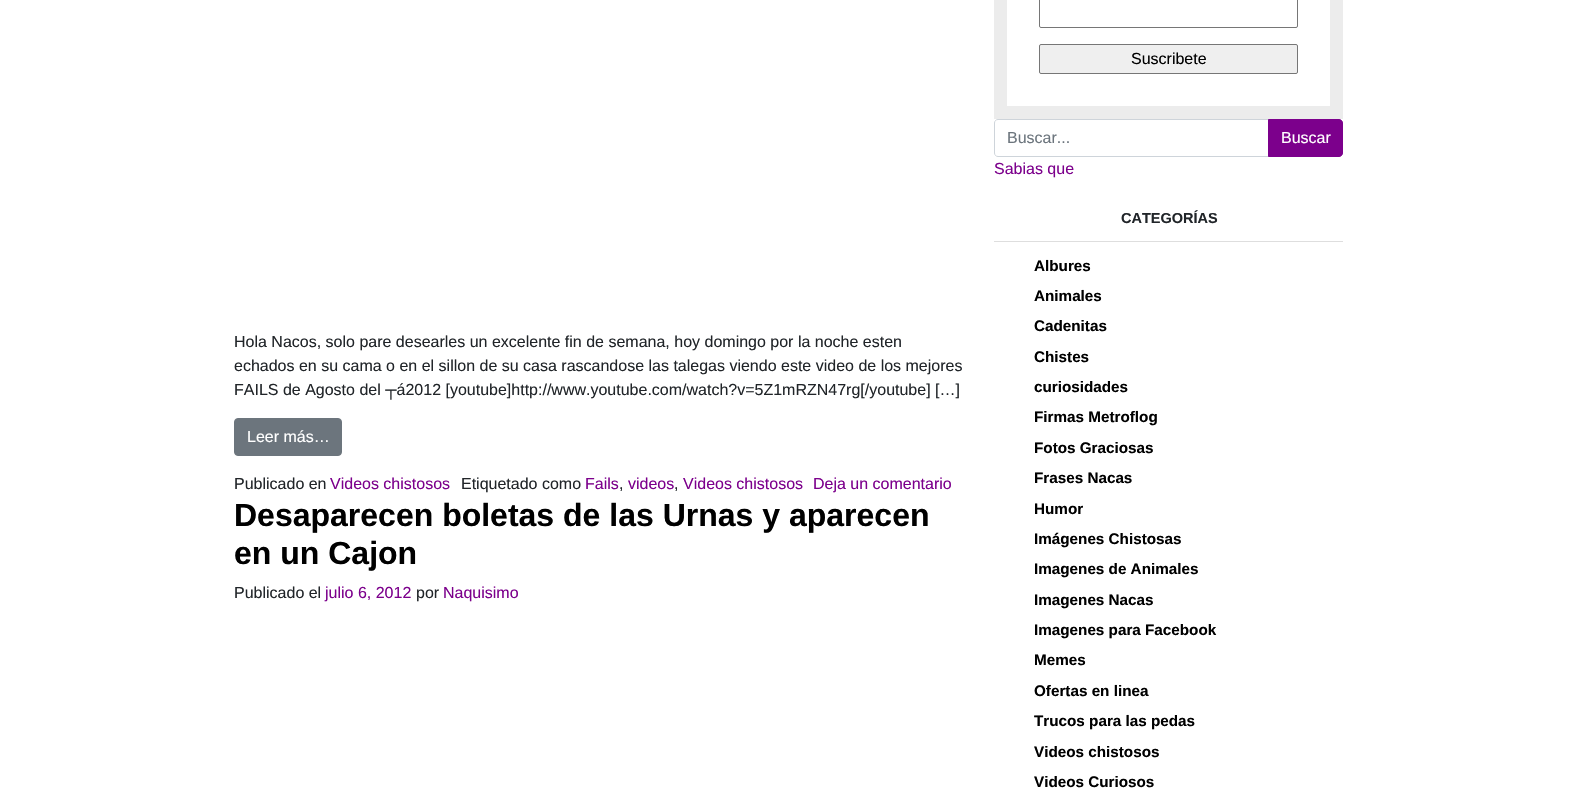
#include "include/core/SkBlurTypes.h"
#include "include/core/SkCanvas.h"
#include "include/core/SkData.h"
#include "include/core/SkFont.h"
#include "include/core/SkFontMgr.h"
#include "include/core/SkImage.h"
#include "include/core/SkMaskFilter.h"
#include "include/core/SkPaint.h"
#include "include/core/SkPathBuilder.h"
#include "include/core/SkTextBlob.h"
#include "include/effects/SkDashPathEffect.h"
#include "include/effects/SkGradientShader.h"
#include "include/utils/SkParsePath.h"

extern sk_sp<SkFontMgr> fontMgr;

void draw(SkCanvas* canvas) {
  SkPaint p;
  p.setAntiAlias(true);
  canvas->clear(SK_ColorWHITE);
  p.setColor(SkColorSetRGB(108, 117, 125));
  canvas->drawRoundRect(SkRect::MakeLTRB(234.5f, 418.5f, 341.5f, 455.5f), 3.5f, 3.5f, p);
  p.setStyle(SkPaint::kStroke_Style);
  p.setStrokeWidth(1);
  canvas->drawRoundRect(SkRect::MakeLTRB(234.5f, 418.5f, 341.5f, 455.5f), 3.5f, 3.5f, p);
  p.setStrokeWidth(13);
  p.setColor(SkColorSetRGB(236, 236, 236));
  canvas->drawRect(SkRect::MakeLTRB(1000.5f, -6.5f, 1336.5f, 112.5f), p);
  p.setStrokeWidth(1);
  p.setColor(SkColorSetRGB(118, 118, 118));
  canvas->drawRoundRect(SkRect::MakeLTRB(1039.5f, -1.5f, 1297.5f, 27.5f), 1.5f, 1.5f, p);
  p.setStyle(SkPaint::kFill_Style);
  p.setColor(SkColorSetRGB(239, 239, 239));
  canvas->drawRoundRect(SkRect::MakeLTRB(1039.5f, 44.5f, 1297.5f, 73.5f), 1.5f, 1.5f, p);
  p.setStyle(SkPaint::kStroke_Style);
  p.setColor(SkColorSetRGB(118, 118, 118));
  canvas->drawRoundRect(SkRect::MakeLTRB(1039.5f, 44.5f, 1297.5f, 73.5f), 1.5f, 1.5f, p);
  p.setColor(SkColorSetRGB(206, 212, 218));
  canvas->drawPath(SkPathBuilder().moveTo(998, 119.5f).lineTo(1268.5f, 119.5f).lineTo(1268.5f, 156.5f).lineTo(998, 156.5f).cubicTo(996, 156.5f, 994.5f, 155, 994.5f, 153).lineTo(994.5f, 123).cubicTo(994.5f, 121, 996, 119.5f, 998, 119.5f).close().detach(), p);
  p.setStyle(SkPaint::kFill_Style);
  p.setColor(SkColorSetRGB(124, 0, 140));
  canvas->drawPath(SkPathBuilder().moveTo(1268.5f, 119.5f).lineTo(1339, 119.5f).cubicTo(1341, 119.5f, 1342.5f, 121, 1342.5f, 123).lineTo(1342.5f, 153).cubicTo(1342.5f, 155, 1341, 156.5f, 1339, 156.5f).lineTo(1268.5f, 156.5f).close().detach(), p);
  p.setStyle(SkPaint::kStroke_Style);
  canvas->drawPath(SkPathBuilder().moveTo(1268.5f, 119.5f).lineTo(1339, 119.5f).cubicTo(1341, 119.5f, 1342.5f, 121, 1342.5f, 123).lineTo(1342.5f, 153).cubicTo(1342.5f, 155, 1341, 156.5f, 1339, 156.5f).lineTo(1268.5f, 156.5f).close().detach(), p);
  p.setStyle(SkPaint::kFill_Style);
  p.setColor(SkColorSetRGB(222, 222, 222));
  canvas->drawRect(SkRect::MakeLTRB(994, 241, 1343, 242), p);
  SkFont font1(fontMgr->matchFamilyStyle("Liberation Sans", SkFontStyle::Normal()), 16);
  font1.setSubpixel(true);
  p.setColor(SkColorSetRGB(33, 37, 41));
  canvas->drawString("Hola Nacos, solo pare desearles un excelente fin de semana, hoy domingo por la noche esten", 234, 347, font1, p);
  canvas->drawString("echados en su cama o en el sillon de su casa rascandose las talegas viendo este video de los mejores", 234, 371, font1, p);
  canvas->drawString("FAILS de Agosto del ┬á2012 [youtube]http://www.youtube.com/watch?v=5Z1mRZN47rg[/youtube] […]", 234, 395, font1, p);
  p.setColor(SK_ColorWHITE);
  canvas->drawString("Leer más…", 247, 442, font1, p);
  p.setColor(SkColorSetRGB(33, 37, 41));
  canvas->drawString("Publicado en", 234, 489, font1, p);
  p.setColor(SkColorSetRGB(124, 0, 140));
  canvas->drawString("Videos chistosos", 330, 489, font1, p);
  p.setColor(SkColorSetRGB(33, 37, 41));
  canvas->drawString("Etiquetado como", 461, 489, font1, p);
  p.setColor(SkColorSetRGB(124, 0, 140));
  canvas->drawString("Fails", 585, 489, font1, p);
  p.setColor(SkColorSetRGB(33, 37, 41));
  canvas->drawString(",", 619, 489, font1, p);
  p.setColor(SkColorSetRGB(124, 0, 140));
  canvas->drawString("videos", 628, 489, font1, p);
  p.setColor(SkColorSetRGB(33, 37, 41));
  canvas->drawString(",", 674, 489, font1, p);
  p.setColor(SkColorSetRGB(124, 0, 140));
  canvas->drawString("Videos chistosos", 683, 489, font1, p);
  canvas->drawString("Deja un comentario", 813, 489, font1, p);
  SkFont font2(fontMgr->matchFamilyStyle("Liberation Sans", SkFontStyle::Bold()), 32);
  font2.setSubpixel(true);
  p.setColor(SK_ColorBLACK);
  canvas->drawString("Desaparecen boletas de las Urnas y aparecen", 234, 526, font2, p);
  canvas->drawString("en un Cajon", 234, 564, font2, p);
  p.setColor(SkColorSetRGB(33, 37, 41));
  canvas->drawString("Publicado el", 234, 598, font1, p);
  p.setColor(SkColorSetRGB(124, 0, 140));
  canvas->drawString("julio 6, 2012", 325, 598, font1, p);
  p.setColor(SkColorSetRGB(33, 37, 41));
  canvas->drawString("por", 416, 598, font1, p);
  p.setColor(SkColorSetRGB(124, 0, 140));
  canvas->drawString("Naquisimo", 443, 598, font1, p);
  p.setColor(SK_ColorBLACK);
  canvas->drawString("Suscribete", 1131, 64, font1, p);
  p.setColor(SkColorSetRGB(108, 117, 125));
  canvas->drawString("Buscar...", 1007, 143, font1, p);
  p.setColor(SK_ColorWHITE);
  canvas->drawString("Buscar", 1281, 143, font1, p);
  p.setColor(SkColorSetRGB(124, 0, 140));
  canvas->drawString("Sabias que", 994, 174, font1, p);
  SkFont font3(fontMgr->matchFamilyStyle("Liberation Sans", SkFontStyle::Bold()), 14.5f);
  font3.setSubpixel(true);
  p.setColor(SkColorSetRGB(33, 37, 41));
  canvas->drawString("CATEGORÍAS", 1121, 223, font3, p);
  SkFont font4(fontMgr->matchFamilyStyle("Liberation Sans", SkFontStyle::Bold()), 15.25f);
  font4.setSubpixel(true);
  p.setColor(SK_ColorBLACK);
  canvas->drawString("Albures", 1034, 271, font4, p);
  canvas->drawString("Animales", 1034, 301, font4, p);
  canvas->drawString("Cadenitas", 1034, 331, font4, p);
  canvas->drawString("Chistes", 1034, 362, font4, p);
  canvas->drawString("curiosidades", 1034, 392, font4, p);
  canvas->drawString("Firmas Metroflog", 1034, 422, font4, p);
  canvas->drawString("Fotos Graciosas", 1034, 453, font4, p);
  canvas->drawString("Frases Nacas", 1034, 483, font4, p);
  canvas->drawString("Humor", 1034, 514, font4, p);
  canvas->drawString("Imágenes Chistosas", 1034, 544, font4, p);
  canvas->drawString("Imagenes de Animales", 1034, 574, font4, p);
  canvas->drawString("Imagenes Nacas", 1034, 605, font4, p);
  canvas->drawString("Imagenes para Facebook", 1034, 635, font4, p);
  canvas->drawString("Memes", 1034, 665, font4, p);
  canvas->drawString("Ofertas en linea", 1034, 696, font4, p);
  canvas->drawString("Trucos para las pedas", 1034, 726, font4, p);
  canvas->drawString("Videos chistosos", 1034, 757, font4, p);
  canvas->drawString("Videos Curiosos", 1034, 787, font4, p);
}
